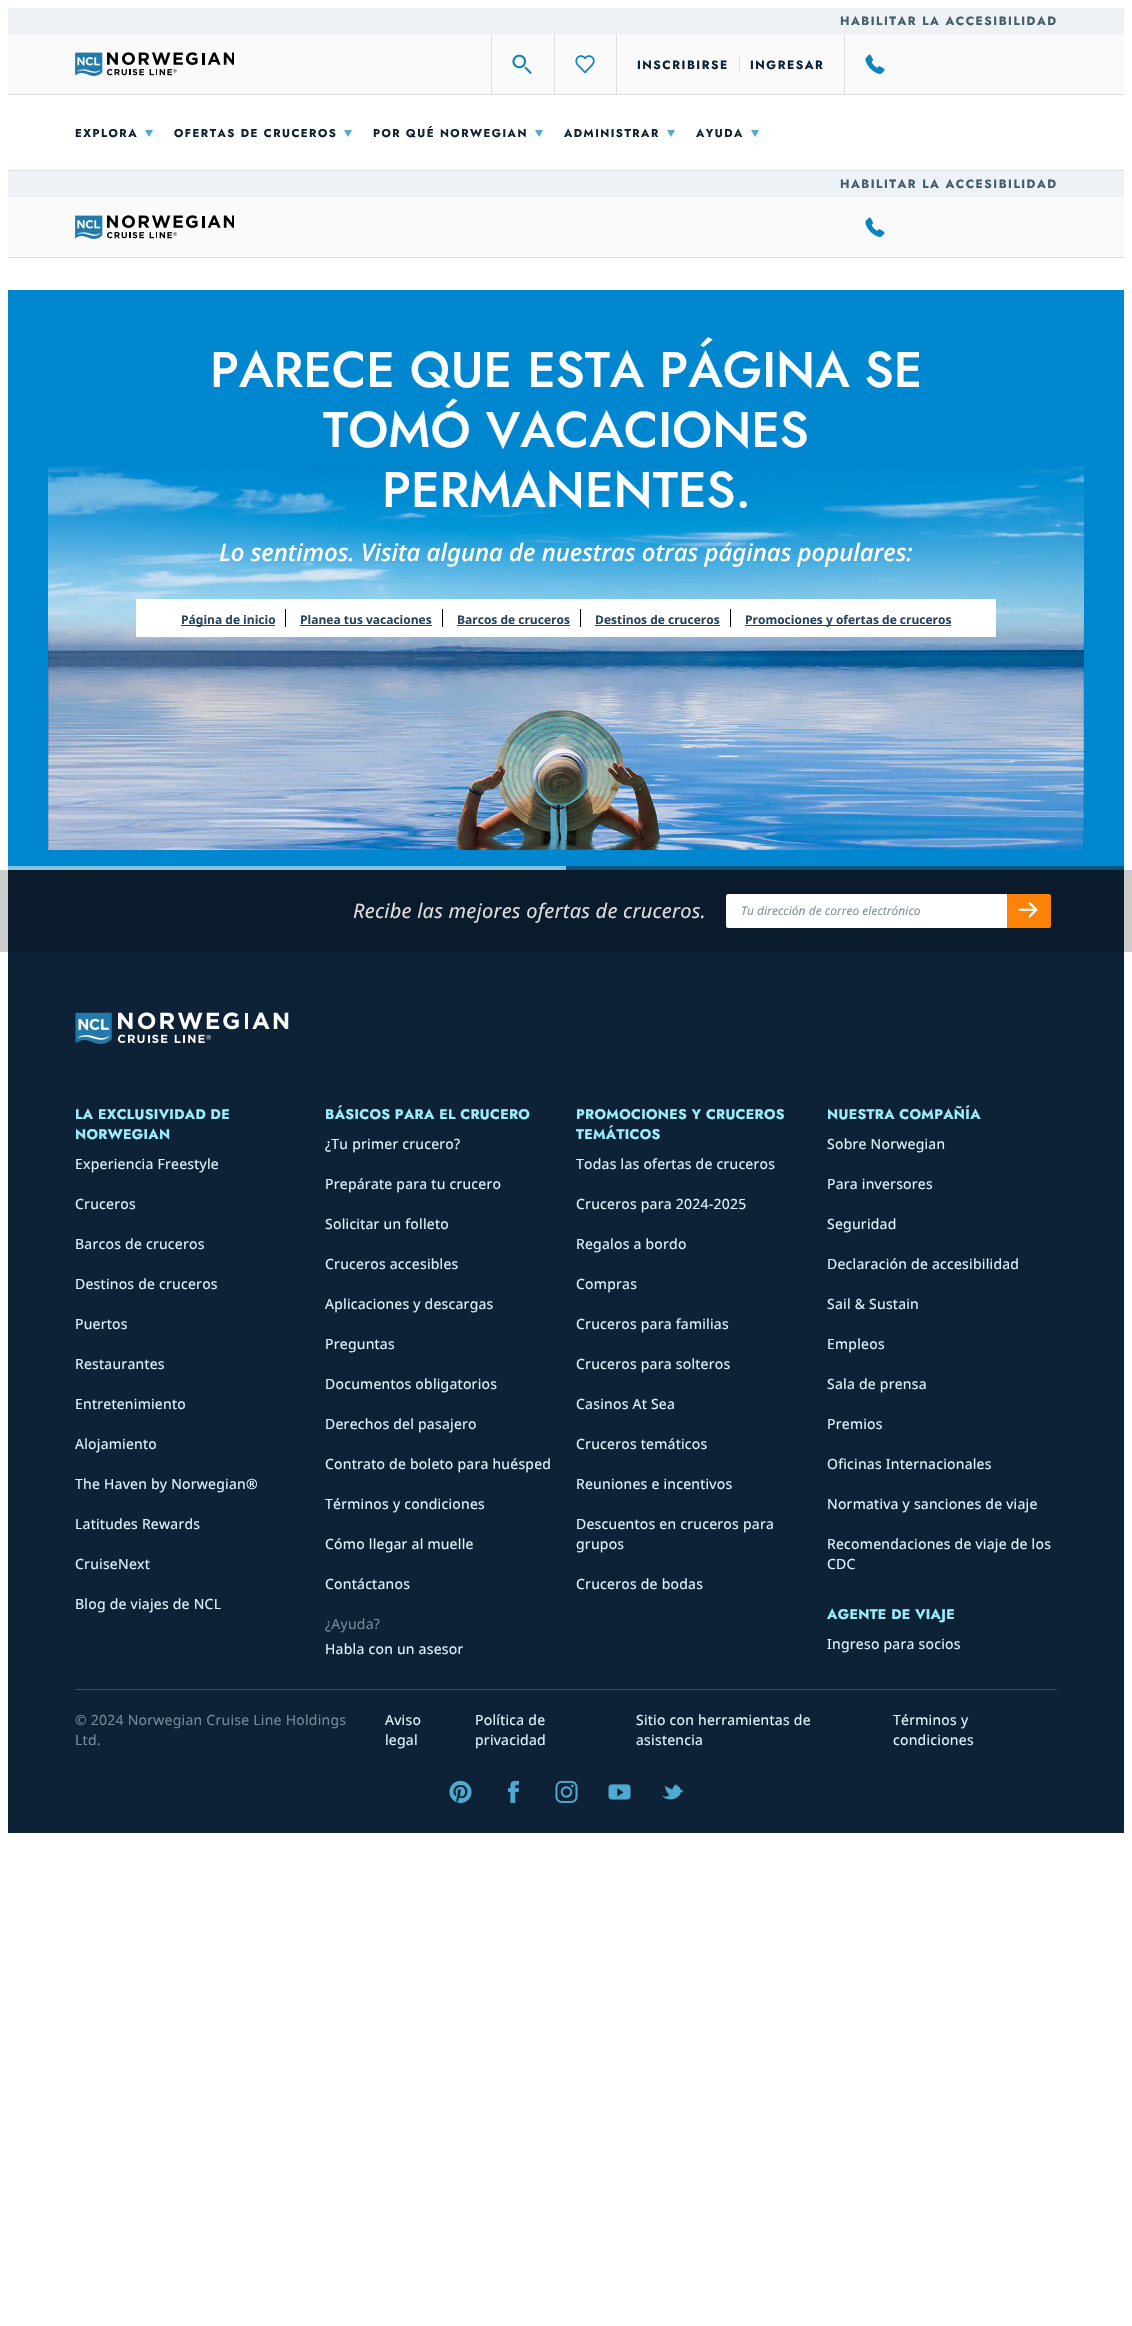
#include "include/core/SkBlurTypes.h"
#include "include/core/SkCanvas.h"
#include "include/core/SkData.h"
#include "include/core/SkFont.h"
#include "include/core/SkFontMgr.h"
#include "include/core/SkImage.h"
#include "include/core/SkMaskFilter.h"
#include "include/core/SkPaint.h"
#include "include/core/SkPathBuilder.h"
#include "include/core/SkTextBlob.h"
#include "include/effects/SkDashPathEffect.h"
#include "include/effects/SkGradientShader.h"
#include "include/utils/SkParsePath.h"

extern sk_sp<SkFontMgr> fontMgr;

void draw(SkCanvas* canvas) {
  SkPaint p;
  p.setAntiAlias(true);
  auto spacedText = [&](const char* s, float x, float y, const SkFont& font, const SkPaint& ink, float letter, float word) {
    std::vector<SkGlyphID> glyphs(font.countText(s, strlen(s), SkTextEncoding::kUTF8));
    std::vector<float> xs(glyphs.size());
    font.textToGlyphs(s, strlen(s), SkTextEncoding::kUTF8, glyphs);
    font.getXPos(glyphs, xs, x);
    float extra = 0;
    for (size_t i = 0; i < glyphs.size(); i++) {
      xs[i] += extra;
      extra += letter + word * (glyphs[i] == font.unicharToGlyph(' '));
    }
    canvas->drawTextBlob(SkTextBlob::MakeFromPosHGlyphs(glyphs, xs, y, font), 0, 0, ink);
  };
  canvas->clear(SK_ColorWHITE);
  p.setColor(SkColorSetRGB(133, 194, 222));
  canvas->drawRect(SkRect::MakeLTRB(8, 866, 566, 870), p);
  p.setColor(SkColorSetRGB(204, 204, 204));
  canvas->drawRect(SkRect::MakeLTRB(0, 870, 1132, 952), p);
  p.setColor(SkColorSetRGB(238, 242, 246));
  canvas->drawRect(SkRect::MakeLTRB(8, 8, 1124, 197), p);
  p.setColor(SkColorSetRGB(250, 250, 250));
  canvas->drawRect(SkRect::MakeLTRB(8, 34, 1124, 94), p);
  p.setColor(SkColorSetRGB(222, 222, 222));
  canvas->drawRect(SkRect::MakeLTRB(8, 94, 1124, 95), p);
  canvas->drawImageRect(SkImages::DeferredFromEncodedData(SkData::MakeFromFileName("images/1.png")), SkRect::MakeLTRB(75, 52, 234, 76), SkSamplingOptions());
  canvas->drawRect(SkRect::MakeLTRB(491, 34, 492, 94), p);
  canvas->drawImageRect(SkImages::DeferredFromEncodedData(SkData::MakeFromFileName("images/2.png")), SkRect::MakeLTRB(512, 54, 532, 74), SkSamplingOptions());
  canvas->drawRect(SkRect::MakeLTRB(554, 34, 555, 94), p);
  canvas->drawImageRect(SkImages::DeferredFromEncodedData(SkData::MakeFromFileName("images/3.png")), SkRect::MakeLTRB(575, 55, 595, 74), SkSamplingOptions());
  canvas->drawRect(SkRect::MakeLTRB(616, 34, 617, 94), p);
  canvas->drawRect(SkRect::MakeLTRB(739, 55, 740, 73), p);
  canvas->drawRect(SkRect::MakeLTRB(844, 34, 845, 94), p);
  canvas->drawImageRect(SkImages::DeferredFromEncodedData(SkData::MakeFromFileName("images/4.png")), SkRect::MakeLTRB(865, 54, 885, 74), SkSamplingOptions());
  p.setColor(SK_ColorWHITE);
  canvas->drawRect(SkRect::MakeLTRB(8, 95, 1124, 170), p);
  p.setColor(SkColorSetRGB(222, 222, 222));
  canvas->drawRect(SkRect::MakeLTRB(8, 170, 1124, 171), p);
  p.setColor(SkColorSetRGB(80, 170, 207));
  canvas->drawPath(SkPathBuilder().moveTo(153, 130).lineTo(145, 130).lineTo(149, 137).close().detach(), p);
  canvas->drawPath(SkPathBuilder().moveTo(352, 130).lineTo(344, 130).lineTo(348, 137).close().detach(), p);
  canvas->drawPath(SkPathBuilder().moveTo(543, 130).lineTo(535, 130).lineTo(539, 137).close().detach(), p);
  canvas->drawPath(SkPathBuilder().moveTo(675, 130).lineTo(667, 130).lineTo(671, 137).close().detach(), p);
  canvas->drawPath(SkPathBuilder().moveTo(759, 130).lineTo(751, 130).lineTo(755, 137).close().detach(), p);
  p.setColor(SkColorSetRGB(250, 250, 250));
  canvas->drawRect(SkRect::MakeLTRB(8, 197, 1124, 257), p);
  p.setColor(SkColorSetRGB(222, 222, 222));
  canvas->drawRect(SkRect::MakeLTRB(8, 257, 1124, 258), p);
  canvas->drawImageRect(SkImages::DeferredFromEncodedData(SkData::MakeFromFileName("images/1.png")), SkRect::MakeLTRB(75, 215, 234, 239), SkSamplingOptions());
  canvas->drawImageRect(SkImages::DeferredFromEncodedData(SkData::MakeFromFileName("images/4.png")), SkRect::MakeLTRB(865, 217, 885, 237), SkSamplingOptions());
  p.setColor(SkColorSetRGB(0, 135, 208));
  canvas->drawRect(SkRect::MakeLTRB(8, 290, 1124, 866), p);
  canvas->drawImageRect(SkImages::DeferredFromEncodedData(SkData::MakeFromFileName("images/5.png")), SkRect::MakeLTRB(48, 465, 1084, 850), SkSamplingOptions());
  p.setColor(SK_ColorWHITE);
  canvas->drawRect(SkRect::MakeLTRB(136, 599, 996, 637), p);
  p.setColor(SK_ColorBLACK);
  canvas->drawRect(SkRect::MakeLTRB(285, 609, 286, 627), p);
  p.setColor(SkColorSetRGB(40, 69, 96));
  canvas->drawRect(SkRect::MakeLTRB(181, 625, 275, 626), p);
  p.setColor(SK_ColorBLACK);
  canvas->drawRect(SkRect::MakeLTRB(442, 609, 443, 627), p);
  p.setColor(SkColorSetRGB(40, 69, 96));
  canvas->drawRect(SkRect::MakeLTRB(300, 625, 432, 626), p);
  p.setColor(SK_ColorBLACK);
  canvas->drawRect(SkRect::MakeLTRB(580, 609, 581, 627), p);
  p.setColor(SkColorSetRGB(40, 69, 96));
  canvas->drawRect(SkRect::MakeLTRB(457, 625, 570, 626), p);
  p.setColor(SK_ColorBLACK);
  canvas->drawRect(SkRect::MakeLTRB(730, 609, 731, 627), p);
  p.setColor(SkColorSetRGB(40, 69, 96));
  canvas->drawRect(SkRect::MakeLTRB(595, 625, 720, 626), p);
  canvas->drawRect(SkRect::MakeLTRB(745, 625, 951, 626), p);
  p.setColor(SkColorSetRGB(12, 83, 122));
  canvas->drawRect(SkRect::MakeLTRB(566, 866, 1124, 870), p);
  p.setColor(SkColorSetRGB(13, 34, 54));
  canvas->drawRect(SkRect::MakeLTRB(8, 952, 1124, 1833), p);
  p.setColor(SkColorSetRGB(10, 27, 43));
  canvas->drawRect(SkRect::MakeLTRB(8, 870, 1124, 952), p);
  p.setColor(SK_ColorWHITE);
  canvas->drawPath(SkPathBuilder().moveTo(728, 894).lineTo(1007, 894).lineTo(1007, 928).lineTo(728, 928).cubicTo(727, 928, 726, 927, 726, 926).lineTo(726, 896).cubicTo(726, 895, 727, 894, 728, 894).close().detach(), p);
  p.setColor(SkColorSetRGB(255, 131, 9));
  canvas->drawPath(SkPathBuilder().moveTo(1007.5f, 894.5f).lineTo(1049, 894.5f).cubicTo(1050, 894.5f, 1050.5f, 895, 1050.5f, 896).lineTo(1050.5f, 926).cubicTo(1050.5f, 927, 1050, 927.5f, 1049, 927.5f).lineTo(1007.5f, 927.5f).close().detach(), p);
  p.setStyle(SkPaint::kStroke_Style);
  p.setStrokeWidth(1);
  canvas->drawPath(SkPathBuilder().moveTo(1007.5f, 894.5f).lineTo(1049, 894.5f).cubicTo(1050, 894.5f, 1050.5f, 895, 1050.5f, 896).lineTo(1050.5f, 926).cubicTo(1050.5f, 927, 1050, 927.5f, 1049, 927.5f).lineTo(1007.5f, 927.5f).close().detach(), p);
  canvas->drawImageRect(SkImages::DeferredFromEncodedData(SkData::MakeFromFileName("images/6.png")), SkRect::MakeLTRB(1018, 902, 1038, 918), SkSamplingOptions());
  p.setStyle(SkPaint::kFill_Style);
  p.setColor(SkColorSetRGB(61, 78, 94));
  canvas->drawRect(SkRect::MakeLTRB(75, 1689, 1057, 1690), p);
  canvas->drawImageRect(SkImages::DeferredFromEncodedData(SkData::MakeFromFileName("images/7.png")), SkRect::MakeLTRB(75, 1012, 289, 1044), SkSamplingOptions());
  canvas->drawImageRect(SkImages::DeferredFromEncodedData(SkData::MakeFromFileName("images/8.png")), SkRect::MakeLTRB(449, 1780, 472, 1803), SkSamplingOptions());
  canvas->drawImageRect(SkImages::DeferredFromEncodedData(SkData::MakeFromFileName("images/9.png")), SkRect::MakeLTRB(508, 1780, 519, 1803), SkSamplingOptions());
  canvas->drawImageRect(SkImages::DeferredFromEncodedData(SkData::MakeFromFileName("images/10.png")), SkRect::MakeLTRB(555, 1780, 578, 1803), SkSamplingOptions());
  canvas->drawImageRect(SkImages::DeferredFromEncodedData(SkData::MakeFromFileName("images/11.png")), SkRect::MakeLTRB(608, 1784, 631, 1800), SkSamplingOptions());
  canvas->drawImageRect(SkImages::DeferredFromEncodedData(SkData::MakeFromFileName("images/12.png")), SkRect::MakeLTRB(661, 1784, 684, 1800), SkSamplingOptions());
  SkFont font1(fontMgr->matchFamilyStyle("Jost", SkFontStyle::Bold()), 12);
  font1.setSubpixel(true);
  p.setColor(SkColorSetRGB(66, 94, 102));
  spacedText("HABILITAR LA ACCESIBILIDAD", 840, 25, font1, p, 1.5f, 0);
  p.setColor(SkColorSetRGB(13, 34, 54));
  spacedText("INSCRIBIRSE", 637, 69, font1, p, 1.5f, 0);
  spacedText("INGRESAR", 750, 69, font1, p, 1.5f, 0);
  SkFont font2(fontMgr->matchFamilyStyle("Jost", SkFontStyle::Bold()), 11.3f);
  font2.setSubpixel(true);
  spacedText("EXPLORA", 75, 137, font2, p, 1.5f, 0);
  spacedText("OFERTAS DE CRUCEROS", 174, 137, font2, p, 1.5f, 0);
  spacedText("POR QUÉ NORWEGIAN", 373, 137, font2, p, 1.5f, 0);
  spacedText("ADMINISTRAR", 564, 137, font2, p, 1.5f, 0);
  spacedText("AYUDA", 696, 137, font2, p, 1.5f, 0);
  p.setColor(SkColorSetRGB(66, 94, 102));
  spacedText("HABILITAR LA ACCESIBILIDAD", 840, 188, font1, p, 1.5f, 0);
  SkFont font3(fontMgr->matchFamilyStyle("Jost", SkFontStyle(500, SkFontStyle::kNormal_Width, SkFontStyle::kUpright_Slant)), 50);
  font3.setSubpixel(true);
  p.setColor(SK_ColorWHITE);
  canvas->drawString("PARECE QUE ESTA PÁGINA SE", 210, 387, font3, p);
  canvas->drawString("TOMÓ VACACIONES", 323, 447, font3, p);
  canvas->drawString("PERMANENTES.", 382, 507, font3, p);
  SkFont font4(fontMgr->matchFamilyStyle("Noto Sans", SkFontStyle(500, SkFontStyle::kNormal_Width, SkFontStyle::kItalic_Slant)), 24);
  font4.setSubpixel(true);
  canvas->drawString("Lo sentimos. Visita alguna de nuestras otras páginas populares:", 219, 561, font4, p);
  SkFont font5(fontMgr->matchFamilyStyle("Noto Sans", SkFontStyle::Bold()), 12);
  font5.setSubpixel(true);
  p.setColor(SkColorSetRGB(40, 69, 96));
  canvas->drawString("Página de inicio", 181, 624, font5, p);
  canvas->drawString("Planea tus vacaciones", 300, 624, font5, p);
  canvas->drawString("Barcos de cruceros", 457, 624, font5, p);
  canvas->drawString("Destinos de cruceros", 595, 624, font5, p);
  canvas->drawString("Promociones y ofertas de cruceros", 745, 624, font5, p);
  SkFont font6(fontMgr->matchFamilyStyle("Noto Sans", SkFontStyle::Italic()), 20);
  font6.setSubpixel(true);
  p.setColor(SkColorSetRGB(222, 222, 222));
  spacedText("Recibe las mejores ofertas de cruceros.", 353, 918, font6, p, 0.25f, 0);
  SkFont font7(fontMgr->matchFamilyStyle("Noto Sans", SkFontStyle::Italic()), 12);
  font7.setSubpixel(true);
  p.setColor(SkColorSetRGB(134, 145, 155));
  canvas->drawString("Tu dirección de correo electrónico", 741, 915, font7, p);
  SkFont font8(fontMgr->matchFamilyStyle("Jost", SkFontStyle::Bold()), 14);
  font8.setSubpixel(true);
  p.setColor(SkColorSetRGB(153, 238, 249));
  spacedText("LA EXCLUSIVIDAD DE", 75, 1119, font8, p, 0.35f, 0);
  spacedText("NORWEGIAN", 75, 1139, font8, p, 0.35f, 0);
  SkFont font9(fontMgr->matchFamilyStyle("Noto Sans", SkFontStyle::Normal()), 14);
  font9.setSubpixel(true);
  p.setColor(SkColorSetRGB(224, 242, 255));
  spacedText("Experiencia Freestyle", 75, 1169, font9, p, 0.25f, 0);
  spacedText("Cruceros", 75, 1209, font9, p, 0.25f, 0);
  spacedText("Barcos de cruceros", 75, 1249, font9, p, 0.25f, 0);
  spacedText("Destinos de cruceros", 75, 1289, font9, p, 0.25f, 0);
  spacedText("Puertos", 75, 1329, font9, p, 0.25f, 0);
  spacedText("Restaurantes", 75, 1369, font9, p, 0.25f, 0);
  spacedText("Entretenimiento", 75, 1409, font9, p, 0.25f, 0);
  spacedText("Alojamiento", 75, 1449, font9, p, 0.25f, 0);
  spacedText("The Haven by Norwegian®", 75, 1489, font9, p, 0.25f, 0);
  spacedText("Latitudes Rewards", 75, 1529, font9, p, 0.25f, 0);
  spacedText("CruiseNext", 75, 1569, font9, p, 0.25f, 0);
  spacedText("Blog de viajes de NCL", 75, 1609, font9, p, 0.25f, 0);
  p.setColor(SkColorSetRGB(153, 238, 249));
  spacedText("BÁSICOS PARA EL CRUCERO", 325, 1119, font8, p, 0.35f, 0);
  p.setColor(SkColorSetRGB(224, 242, 255));
  spacedText("¿Tu primer crucero?", 325, 1149, font9, p, 0.25f, 0);
  spacedText("Prepárate para tu crucero", 325, 1189, font9, p, 0.25f, 0);
  spacedText("Solicitar un folleto", 325, 1229, font9, p, 0.25f, 0);
  spacedText("Cruceros accesibles", 325, 1269, font9, p, 0.25f, 0);
  spacedText("Aplicaciones y descargas", 325, 1309, font9, p, 0.25f, 0);
  spacedText("Preguntas", 325, 1349, font9, p, 0.25f, 0);
  spacedText("Documentos obligatorios", 325, 1389, font9, p, 0.25f, 0);
  spacedText("Derechos del pasajero", 325, 1429, font9, p, 0.25f, 0);
  spacedText("Contrato de boleto para huésped", 325, 1469, font9, p, 0.25f, 0);
  spacedText("Términos y condiciones", 325, 1509, font9, p, 0.25f, 0);
  spacedText("Cómo llegar al muelle", 325, 1549, font9, p, 0.25f, 0);
  spacedText("Contáctanos", 325, 1589, font9, p, 0.25f, 0);
  p.setColor(SkColorSetRGB(119, 138, 155));
  spacedText("¿Ayuda?", 325, 1629, font9, p, 0.25f, 0);
  p.setColor(SkColorSetRGB(224, 242, 255));
  spacedText("Habla con un asesor", 325, 1654, font9, p, 0.25f, 0);
  p.setColor(SkColorSetRGB(153, 238, 249));
  spacedText("PROMOCIONES Y CRUCEROS", 576, 1119, font8, p, 0.35f, 0);
  spacedText("TEMÁTICOS", 576, 1139, font8, p, 0.35f, 0);
  p.setColor(SkColorSetRGB(224, 242, 255));
  spacedText("Todas las ofertas de cruceros", 576, 1169, font9, p, 0.25f, 0);
  spacedText("Cruceros para 2024-2025", 576, 1209, font9, p, 0.25f, 0);
  spacedText("Regalos a bordo", 576, 1249, font9, p, 0.25f, 0);
  spacedText("Compras", 576, 1289, font9, p, 0.25f, 0);
  spacedText("Cruceros para familias", 576, 1329, font9, p, 0.25f, 0);
  spacedText("Cruceros para solteros", 576, 1369, font9, p, 0.25f, 0);
  spacedText("Casinos At Sea", 576, 1409, font9, p, 0.25f, 0);
  spacedText("Cruceros temáticos", 576, 1449, font9, p, 0.25f, 0);
  spacedText("Reuniones e incentivos", 576, 1489, font9, p, 0.25f, 0);
  spacedText("Descuentos en cruceros para", 576, 1529, font9, p, 0.25f, 0);
  spacedText("grupos", 576, 1549, font9, p, 0.25f, 0);
  spacedText("Cruceros de bodas", 576, 1589, font9, p, 0.25f, 0);
  p.setColor(SkColorSetRGB(153, 238, 249));
  spacedText("NUESTRA COMPAÑÍA", 827, 1119, font8, p, 0.35f, 0);
  p.setColor(SkColorSetRGB(224, 242, 255));
  spacedText("Sobre Norwegian", 827, 1149, font9, p, 0.25f, 0);
  spacedText("Para inversores", 827, 1189, font9, p, 0.25f, 0);
  spacedText("Seguridad", 827, 1229, font9, p, 0.25f, 0);
  spacedText("Declaración de accesibilidad", 827, 1269, font9, p, 0.25f, 0);
  spacedText("Sail & Sustain", 827, 1309, font9, p, 0.25f, 0);
  spacedText("Empleos", 827, 1349, font9, p, 0.25f, 0);
  spacedText("Sala de prensa", 827, 1389, font9, p, 0.25f, 0);
  spacedText("Premios", 827, 1429, font9, p, 0.25f, 0);
  spacedText("Oficinas Internacionales", 827, 1469, font9, p, 0.25f, 0);
  spacedText("Normativa y sanciones de viaje", 827, 1509, font9, p, 0.25f, 0);
  spacedText("Recomendaciones de viaje de los", 827, 1549, font9, p, 0.25f, 0);
  spacedText("CDC", 827, 1569, font9, p, 0.25f, 0);
  p.setColor(SkColorSetRGB(153, 238, 249));
  spacedText("AGENTE DE VIAJE", 827, 1619, font8, p, 0.35f, 0);
  p.setColor(SkColorSetRGB(224, 242, 255));
  spacedText("Ingreso para socios", 827, 1649, font9, p, 0.25f, 0);
  p.setColor(SkColorSetRGB(119, 138, 155));
  spacedText("© 2024 Norwegian Cruise Line Holdings", 75, 1725, font9, p, 0.25f, 0);
  spacedText("Ltd.", 75, 1745, font9, p, 0.25f, 0);
  p.setColor(SkColorSetRGB(224, 242, 255));
  spacedText("Aviso", 385, 1725, font9, p, 0.25f, 0);
  spacedText("legal", 385, 1745, font9, p, 0.25f, 0);
  spacedText("Política de", 475, 1725, font9, p, 0.25f, 0);
  spacedText("privacidad", 475, 1745, font9, p, 0.25f, 0);
  spacedText("Sitio con herramientas de", 636, 1725, font9, p, 0.25f, 0);
  spacedText("asistencia", 636, 1745, font9, p, 0.25f, 0);
  spacedText("Términos y", 893, 1725, font9, p, 0.25f, 0);
  spacedText("condiciones", 893, 1745, font9, p, 0.25f, 0);
}
